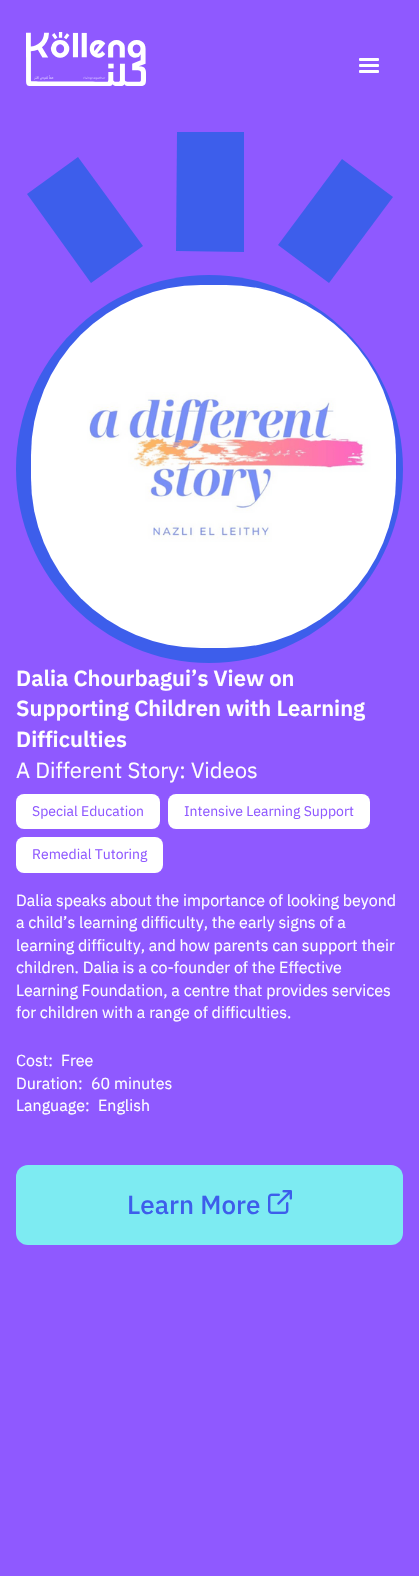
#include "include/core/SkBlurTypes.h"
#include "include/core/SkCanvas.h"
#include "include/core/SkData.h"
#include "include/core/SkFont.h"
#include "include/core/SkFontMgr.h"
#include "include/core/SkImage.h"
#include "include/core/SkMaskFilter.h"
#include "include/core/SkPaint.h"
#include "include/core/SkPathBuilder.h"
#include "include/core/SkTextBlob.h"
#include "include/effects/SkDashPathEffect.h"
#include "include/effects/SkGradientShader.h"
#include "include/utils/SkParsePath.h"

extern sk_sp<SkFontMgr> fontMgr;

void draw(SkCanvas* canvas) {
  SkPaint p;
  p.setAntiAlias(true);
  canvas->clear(SkColorSetRGB(143, 89, 255));
  canvas->drawImageRect(SkImages::DeferredFromEncodedData(SkData::MakeFromFileName("images/1.png")), SkRect::MakeLTRB(26, 32, 146, 86), SkSamplingOptions());
  canvas->drawImageRect(SkImages::DeferredFromEncodedData(SkData::MakeFromFileName("images/2.png")), SkRect::MakeLTRB(359, 58, 379, 73), SkSamplingOptions());
  p.setColor(SkColorSetRGB(61, 94, 235));
  canvas->drawPath(SkPathBuilder(SkPathFillType::kEvenOdd).moveTo(176, 251).lineTo(177, 132).lineTo(244, 132).lineTo(244, 252).close().detach(), p);
  canvas->drawPath(SkPathBuilder(SkPathFillType::kEvenOdd).moveTo(27, 194).lineTo(91, 283).lineTo(143, 246).lineTo(78, 157).close().detach(), p);
  canvas->drawPath(SkPathBuilder(SkPathFillType::kEvenOdd).moveTo(278, 245).lineTo(329, 283).lineTo(393, 197).lineTo(342, 159).close().detach(), p);
  canvas->drawPath(SkPathBuilder(SkPathFillType::kEvenOdd).moveTo(209, 275).cubicTo(103, 275, 16, 362, 16, 469).cubicTo(16, 576, 103, 663, 209, 663).cubicTo(316, 663, 403, 576, 403, 469).cubicTo(403, 362, 316, 275, 209, 275).close().detach(), p);
  canvas->drawImageRect(SkImages::DeferredFromEncodedData(SkData::MakeFromFileName("images/3.png")), SkRect::MakeLTRB(31, 285, 396, 648), SkSamplingOptions());
  p.setColor(SK_ColorWHITE);
  canvas->drawRoundRect(SkRect::MakeLTRB(16, 794, 160, 829), 8, 8, p);
  canvas->drawRoundRect(SkRect::MakeLTRB(168, 794, 370, 829), 8, 8, p);
  canvas->drawRoundRect(SkRect::MakeLTRB(16, 837, 163, 873), 8, 8, p);
  p.setColor(SkColorSetRGB(125, 235, 242));
  canvas->drawRoundRect(SkRect::MakeLTRB(16, 1165, 403, 1245), 12, 12, p);
  canvas->drawImageRect(SkImages::DeferredFromEncodedData(SkData::MakeFromFileName("images/4.png")), SkRect::MakeLTRB(268, 1190, 292, 1214), SkSamplingOptions());
  SkFont font1(fontMgr->matchFamilyStyle("IBM Plex Sans", SkFontStyle(600, SkFontStyle::kNormal_Width, SkFontStyle::kUpright_Slant)), 22);
  font1.setSubpixel(true);
  p.setColor(SK_ColorWHITE);
  canvas->drawString("Dalia Chourbagui’s View on", 16, 686, font1, p);
  canvas->drawString("Supporting Children with Learning", 16, 716, font1, p);
  canvas->drawString("Difficulties", 16, 747, font1, p);
  SkFont font2(fontMgr->matchFamilyStyle("IBM Plex Sans", SkFontStyle::Normal()), 22);
  font2.setSubpixel(true);
  canvas->drawString("A Different Story: Videos", 16, 778, font2, p);
  SkFont font3(fontMgr->matchFamilyStyle("IBM Plex Sans", SkFontStyle::Normal()), 14);
  font3.setSubpixel(true);
  p.setColor(SkColorSetRGB(143, 89, 255));
  canvas->drawString("Special Education", 32, 816, font3, p);
  canvas->drawString("Intensive Learning Support", 184, 816, font3, p);
  canvas->drawString("Remedial Tutoring", 32, 859, font3, p);
  SkFont font4(fontMgr->matchFamilyStyle("IBM Plex Sans", SkFontStyle::Normal()), 16);
  font4.setSubpixel(true);
  p.setColor(SK_ColorWHITE);
  canvas->drawString("Dalia speaks about the importance of looking beyond", 16, 906, font4, p);
  canvas->drawString("a child’s learning difficulty, the early signs of a", 16, 928, font4, p);
  canvas->drawString("learning difficulty, and how parents can support their", 16, 951, font4, p);
  canvas->drawString("children. Dalia is a co-founder of the Effective", 16, 973, font4, p);
  canvas->drawString("Learning Foundation, a centre that provides services", 16, 996, font4, p);
  canvas->drawString("for children with a range of difficulties.", 16, 1018, font4, p);
  canvas->drawString("Cost:", 16, 1066, font4, p);
  canvas->drawString("Free", 61, 1066, font4, p);
  canvas->drawString("Duration:", 16, 1089, font4, p);
  canvas->drawString("60 minutes", 91, 1089, font4, p);
  canvas->drawString("Language:", 16, 1111, font4, p);
  canvas->drawString("English", 98, 1111, font4, p);
  SkFont font5(fontMgr->matchFamilyStyle("IBM Plex Sans", SkFontStyle(500, SkFontStyle::kNormal_Width, SkFontStyle::kUpright_Slant)), 26);
  font5.setSubpixel(true);
  p.setColor(SkColorSetRGB(61, 94, 235));
  canvas->drawString("Learn More", 127, 1214, font5, p);
}
